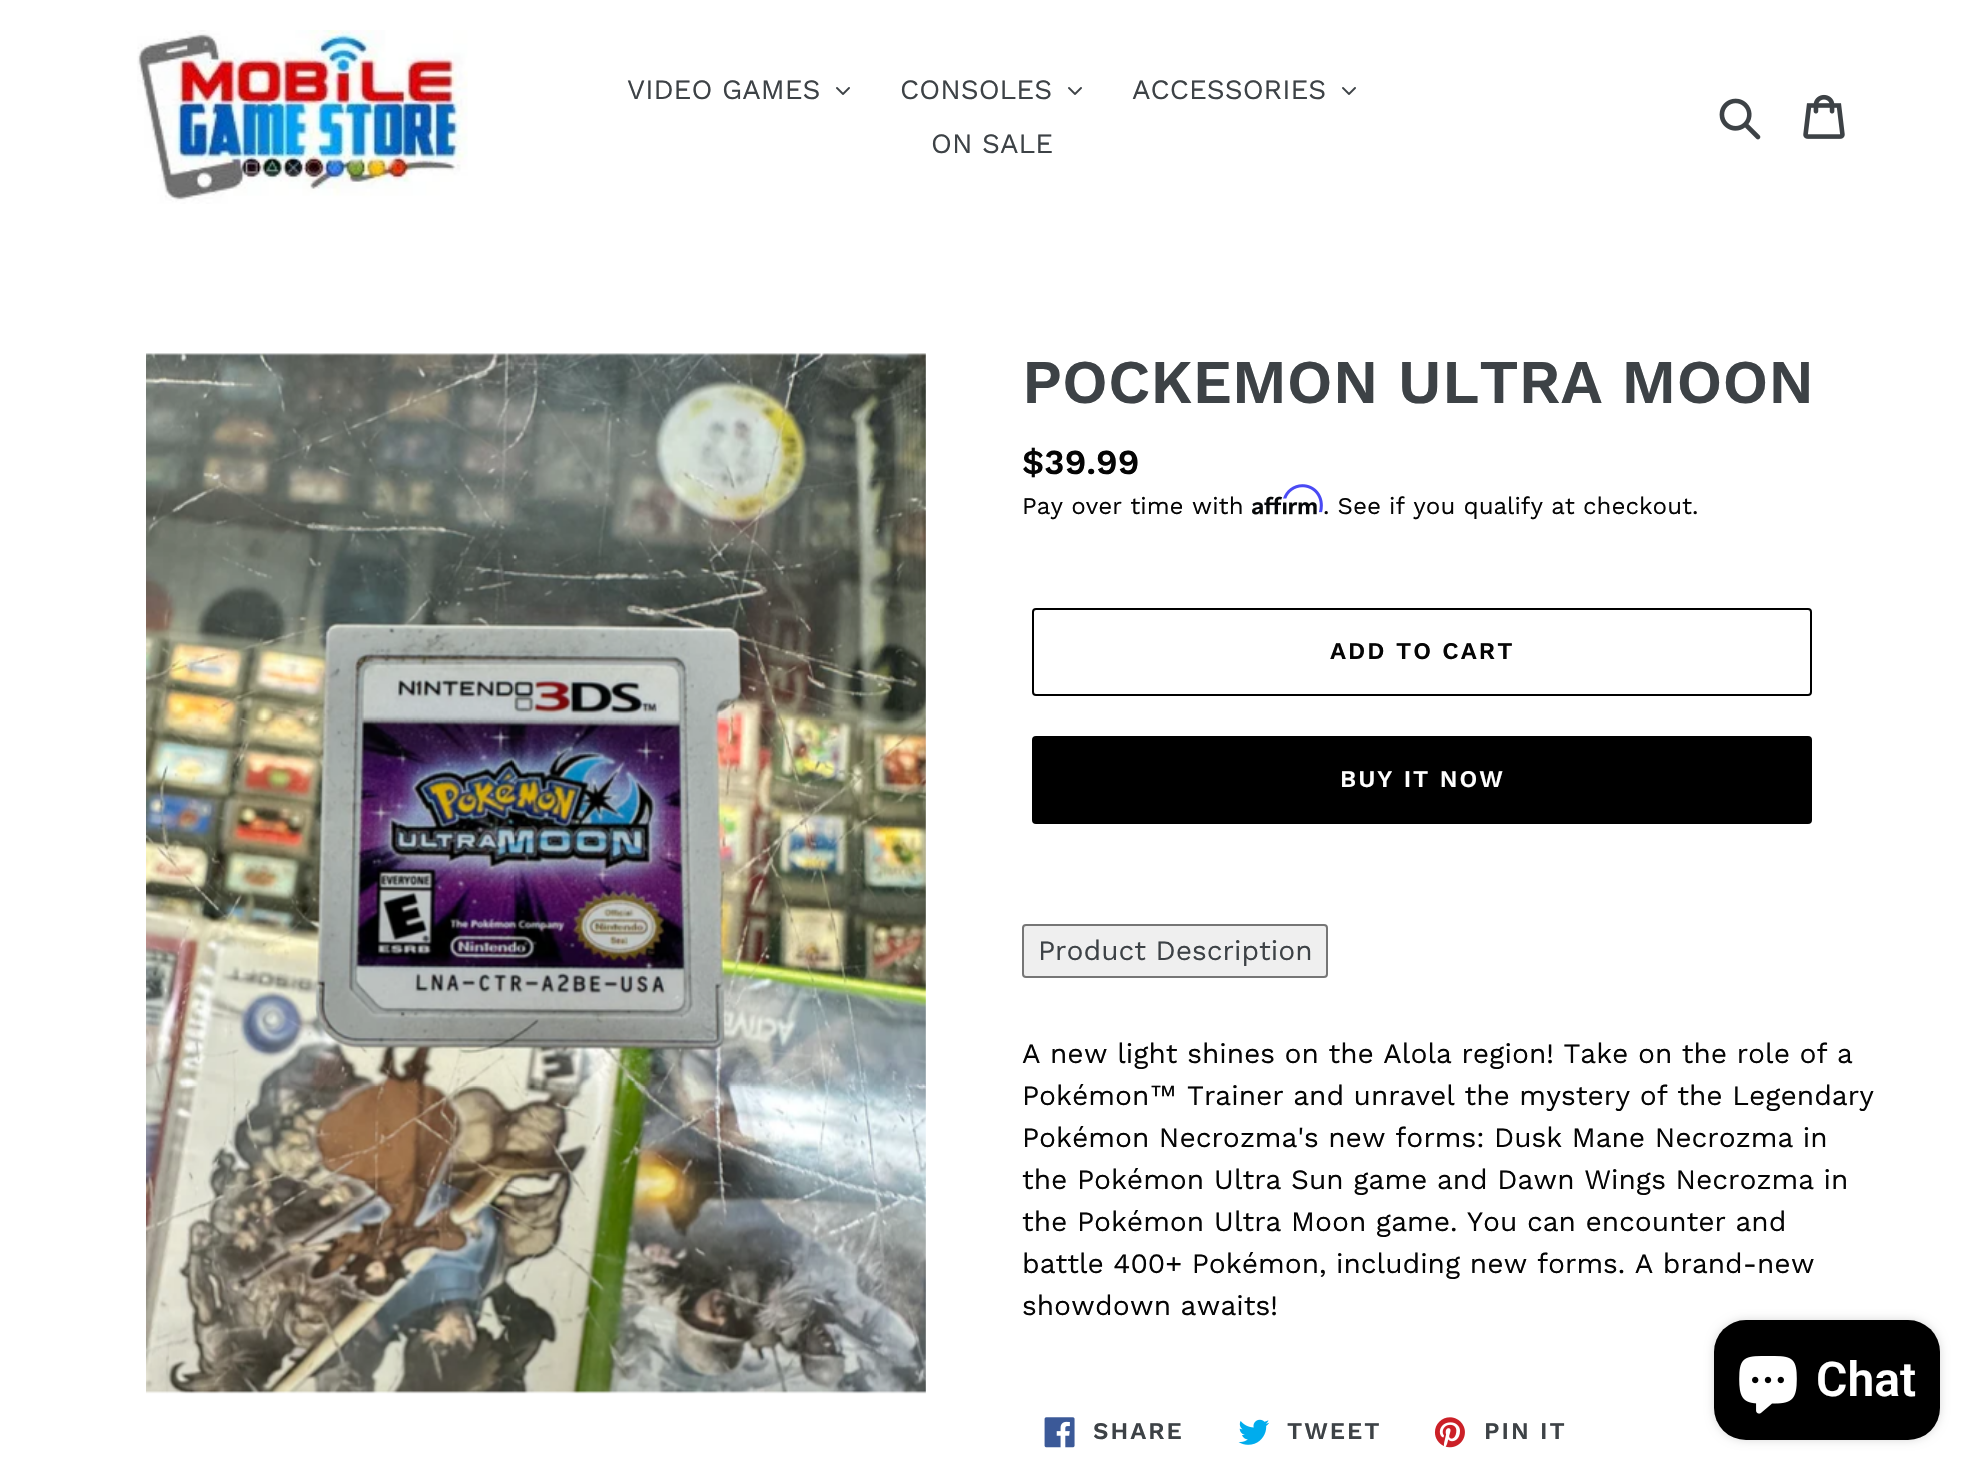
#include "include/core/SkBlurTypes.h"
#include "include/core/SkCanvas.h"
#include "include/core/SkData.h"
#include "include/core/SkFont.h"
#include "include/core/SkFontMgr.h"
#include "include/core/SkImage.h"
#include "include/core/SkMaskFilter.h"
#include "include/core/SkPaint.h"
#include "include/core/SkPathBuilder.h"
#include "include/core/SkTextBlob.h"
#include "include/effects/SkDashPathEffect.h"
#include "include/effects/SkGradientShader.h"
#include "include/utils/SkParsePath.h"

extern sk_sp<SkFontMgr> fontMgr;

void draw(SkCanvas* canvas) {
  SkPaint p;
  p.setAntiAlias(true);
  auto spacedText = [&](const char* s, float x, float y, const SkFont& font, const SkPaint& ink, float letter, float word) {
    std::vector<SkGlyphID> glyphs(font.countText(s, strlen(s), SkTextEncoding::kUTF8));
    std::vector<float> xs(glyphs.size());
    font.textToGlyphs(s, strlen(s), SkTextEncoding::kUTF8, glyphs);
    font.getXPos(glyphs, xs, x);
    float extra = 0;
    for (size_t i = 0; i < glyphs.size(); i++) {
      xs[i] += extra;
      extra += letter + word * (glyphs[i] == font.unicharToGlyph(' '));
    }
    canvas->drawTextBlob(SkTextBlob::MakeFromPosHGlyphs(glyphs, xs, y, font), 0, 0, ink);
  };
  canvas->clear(SK_ColorWHITE);
  canvas->drawImageRect(SkImages::DeferredFromEncodedData(SkData::MakeFromFileName("images/1.png")), SkRect::MakeLTRB(137, 30, 468, 204), SkSamplingOptions());
  canvas->drawImageRect(SkImages::DeferredFromEncodedData(SkData::MakeFromFileName("images/2.png")), SkRect::MakeLTRB(836, 87, 850, 95), SkSamplingOptions());
  canvas->drawImageRect(SkImages::DeferredFromEncodedData(SkData::MakeFromFileName("images/2.png")), SkRect::MakeLTRB(1068, 87, 1082, 95), SkSamplingOptions());
  canvas->drawImageRect(SkImages::DeferredFromEncodedData(SkData::MakeFromFileName("images/2.png")), SkRect::MakeLTRB(1342, 87, 1356, 95), SkSamplingOptions());
  canvas->drawImageRect(SkImages::DeferredFromEncodedData(SkData::MakeFromFileName("images/3.png")), SkRect::MakeLTRB(1719, 98, 1761, 140), SkSamplingOptions());
  canvas->drawImageRect(SkImages::DeferredFromEncodedData(SkData::MakeFromFileName("images/4.png")), SkRect::MakeLTRB(1803, 94, 1845, 139), SkSamplingOptions());
  canvas->drawImageRect(SkImages::DeferredFromEncodedData(SkData::MakeFromFileName("images/5.png")), SkRect::MakeLTRB(146, 353, 926, 1394), SkSamplingOptions());
  canvas->drawImageRect(SkImages::DeferredFromEncodedData(SkData::MakeFromFileName("images/7.png")), SkRect::MakeLTRB(1252, 496, 1317, 515), SkSamplingOptions());
  canvas->drawImageRect(SkImages::DeferredFromEncodedData(SkData::MakeFromFileName("images/6.png")), SkRect::MakeLTRB(1283, 484, 1323, 513), SkSamplingOptions());
  p.setStyle(SkPaint::kStroke_Style);
  p.setStrokeWidth(2);
  p.setColor(SK_ColorBLACK);
  canvas->drawRoundRect(SkRect::MakeLTRB(1033, 609, 1811, 695), 3, 3, p);
  p.setStyle(SkPaint::kFill_Style);
  canvas->drawRoundRect(SkRect::MakeLTRB(1032, 736, 1812, 824), 4, 4, p);
  p.setColor(SkColorSetRGB(239, 239, 239));
  canvas->drawRoundRect(SkRect::MakeLTRB(1023, 925, 1327, 977), 3, 3, p);
  p.setStyle(SkPaint::kStroke_Style);
  p.setColor(SkColorSetRGB(118, 118, 118));
  canvas->drawRoundRect(SkRect::MakeLTRB(1023, 925, 1327, 977), 3, 3, p);
  canvas->drawImageRect(SkImages::DeferredFromEncodedData(SkData::MakeFromFileName("images/8.png")), SkRect::MakeLTRB(1044, 1417, 1075, 1448), SkSamplingOptions());
  canvas->drawImageRect(SkImages::DeferredFromEncodedData(SkData::MakeFromFileName("images/9.png")), SkRect::MakeLTRB(1238, 1419, 1270, 1445), SkSamplingOptions());
  canvas->drawImageRect(SkImages::DeferredFromEncodedData(SkData::MakeFromFileName("images/10.png")), SkRect::MakeLTRB(1434, 1417, 1465, 1448), SkSamplingOptions());
  p.setStyle(SkPaint::kFill_Style);
  p.setColor(SkColorSetARGB(38, 0, 0, 0));
  p.setMaskFilter(SkMaskFilter::MakeBlur(kNormal_SkBlurStyle, 5));
  canvas->drawRoundRect(SkRect::MakeLTRB(1714, 1320, 1940, 1440), 32, 32, p);
  p.setMaskFilter(nullptr);
  p.setColor(SK_ColorBLACK);
  canvas->drawRoundRect(SkRect::MakeLTRB(1714, 1320, 1940, 1440), 32, 32, p);
  canvas->drawImageRect(SkImages::DeferredFromEncodedData(SkData::MakeFromFileName("images/11.png")), SkRect::MakeLTRB(1739, 1356, 1797, 1414), SkSamplingOptions());
  SkFont font1(fontMgr->matchFamilyStyle("Work Sans", SkFontStyle::Normal()), 28);
  font1.setSubpixel(true);
  p.setColor(SkColorSetRGB(61, 66, 70));
  canvas->drawString("VIDEO GAMES", 627, 99, font1, p);
  canvas->drawString("CONSOLES", 900, 99, font1, p);
  canvas->drawString("ACCESSORIES", 1132, 99, font1, p);
  canvas->drawString("ON SALE", 931, 153, font1, p);
  SkFont font2(fontMgr->matchFamilyStyle("Work Sans", SkFontStyle(600, SkFontStyle::kNormal_Width, SkFontStyle::kUpright_Slant)), 62);
  font2.setSubpixel(true);
  canvas->drawString("POCKEMON ULTRA MOON", 1022, 403, font2, p);
  SkFont font3(fontMgr->matchFamilyStyle("Work Sans", SkFontStyle(600, SkFontStyle::kNormal_Width, SkFontStyle::kUpright_Slant)), 35);
  font3.setSubpixel(true);
  p.setColor(SkColorSetRGB(5, 5, 5));
  canvas->drawString("$39.99", 1022, 474, font3, p);
  SkFont font4(fontMgr->matchFamilyStyle("Work Sans", SkFontStyle::Normal()), 24);
  font4.setSubpixel(true);
  canvas->drawString("Pay over time with", 1022, 514, font4, p);
  canvas->drawString(". See if you qualify at checkout.", 1323, 514, font4, p);
  SkFont font5(fontMgr->matchFamilyStyle("Work Sans", SkFontStyle(600, SkFontStyle::kNormal_Width, SkFontStyle::kUpright_Slant)), 24);
  font5.setSubpixel(true);
  spacedText("ADD TO CART", 1330, 659, font5, p, 2, 0);
  p.setColor(SK_ColorWHITE);
  spacedText("BUY IT NOW", 1340, 787, font5, p, 2, 0);
  p.setColor(SkColorSetRGB(61, 66, 70));
  canvas->drawString("Product Description", 1038, 960, font1, p);
  p.setColor(SkColorSetRGB(5, 5, 5));
  canvas->drawString("A new light shines on the Alola region! Take on the role of a", 1022, 1063, font1, p);
  canvas->drawString("Pokémon", 1022, 1105, font1, p);
  SkFont font6(fontMgr->matchFamilyStyle("Liberation Sans", SkFontStyle::Normal()), 28);
  font6.setSubpixel(true);
  canvas->drawString("™", 1149, 1105, font6, p);
  canvas->drawString("Trainer and unravel the mystery of the Legendary", 1187, 1105, font1, p);
  canvas->drawString("Pokémon Necrozma's new forms: Dusk Mane Necrozma in", 1022, 1147, font1, p);
  canvas->drawString("the Pokémon Ultra Sun game and Dawn Wings Necrozma in", 1022, 1189, font1, p);
  canvas->drawString("the Pokémon Ultra Moon game. You can encounter and", 1022, 1231, font1, p);
  canvas->drawString("battle 400+ Pokémon, including new forms. A brand-new", 1022, 1273, font1, p);
  canvas->drawString("showdown awaits!", 1022, 1315, font1, p);
  p.setColor(SkColorSetRGB(61, 66, 70));
  spacedText("SHARE", 1093, 1439, font5, p, 2, 0);
  spacedText("TWEET", 1287, 1439, font5, p, 2, 0);
  spacedText("PIN IT", 1484, 1439, font5, p, 2, 0);
  SkFont font7(fontMgr->matchFamilyStyle("Roboto", SkFontStyle(600, SkFontStyle::kNormal_Width, SkFontStyle::kUpright_Slant)), 48);
  font7.setSubpixel(true);
  p.setColor(SK_ColorWHITE);
  canvas->drawString("Chat", 1816, 1396, font7, p);
}
